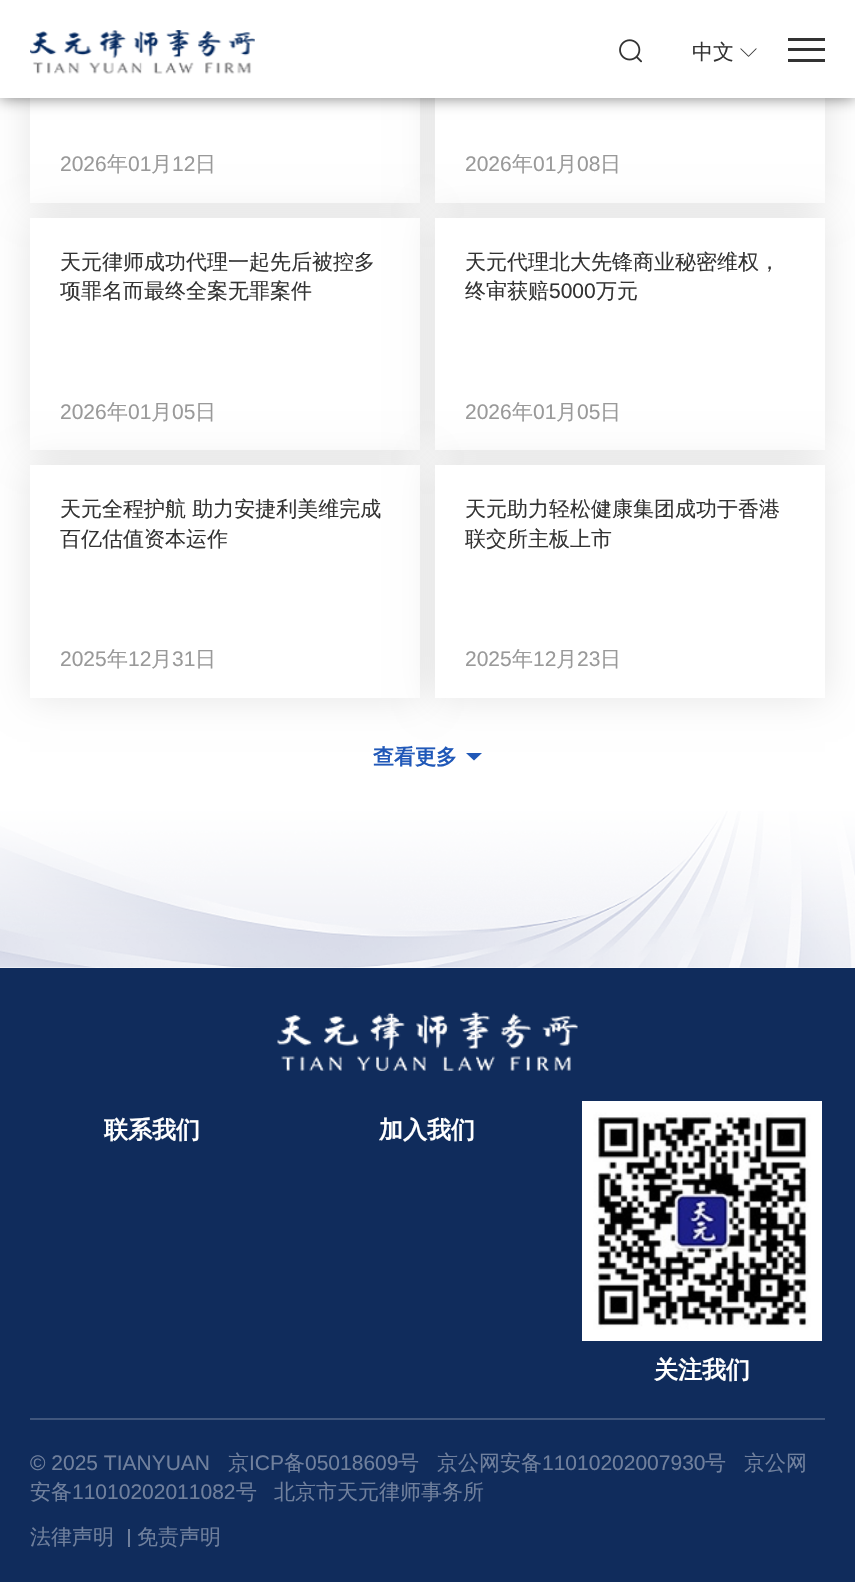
#include "include/core/SkBlurTypes.h"
#include "include/core/SkCanvas.h"
#include "include/core/SkData.h"
#include "include/core/SkFont.h"
#include "include/core/SkFontMgr.h"
#include "include/core/SkImage.h"
#include "include/core/SkMaskFilter.h"
#include "include/core/SkPaint.h"
#include "include/core/SkPathBuilder.h"
#include "include/core/SkTextBlob.h"
#include "include/effects/SkDashPathEffect.h"
#include "include/effects/SkGradientShader.h"
#include "include/utils/SkParsePath.h"

extern sk_sp<SkFontMgr> fontMgr;

void draw(SkCanvas* canvas) {
  SkPaint p;
  p.setAntiAlias(true);
  canvas->clear(SK_ColorWHITE);
  p.setColor(SkColorSetARGB(26, 0, 0, 0));
  p.setMaskFilter(SkMaskFilter::MakeBlur(kNormal_SkBlurStyle, 18));
  canvas->drawRect(SkRect::MakeLTRB(30, -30, 420, 203), p);
  p.setMaskFilter(nullptr);
  p.setColor(SK_ColorWHITE);
  canvas->drawRect(SkRect::MakeLTRB(30, 98, 420, 203), p);
  p.setColor(SkColorSetARGB(26, 0, 0, 0));
  p.setMaskFilter(SkMaskFilter::MakeBlur(kNormal_SkBlurStyle, 18));
  canvas->drawRect(SkRect::MakeLTRB(435, -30, 825, 203), p);
  p.setMaskFilter(nullptr);
  p.setColor(SK_ColorWHITE);
  canvas->drawRect(SkRect::MakeLTRB(435, 98, 825, 203), p);
  p.setColor(SkColorSetARGB(128, 0, 0, 0));
  p.setMaskFilter(SkMaskFilter::MakeBlur(kNormal_SkBlurStyle, 7.5f));
  canvas->drawRect(SkRect::MakeLTRB(0, 0, 855, 98), p);
  p.setMaskFilter(nullptr);
  p.setColor(SK_ColorWHITE);
  canvas->drawRect(SkRect::MakeLTRB(0, 0, 855, 98), p);
  canvas->drawImageRect(SkImages::DeferredFromEncodedData(SkData::MakeFromFileName("images/1.png")), SkRect::MakeLTRB(30, 30, 255, 74), SkSamplingOptions());
  canvas->drawImageRect(SkImages::DeferredFromEncodedData(SkData::MakeFromFileName("images/2.png")), SkRect::MakeLTRB(619, 39, 642, 63), SkSamplingOptions());
  canvas->drawImageRect(SkImages::DeferredFromEncodedData(SkData::MakeFromFileName("images/3.png")), SkRect::MakeLTRB(740, 48, 757, 57), SkSamplingOptions());
  p.setColor(SkColorSetRGB(51, 51, 51));
  canvas->drawRect(SkRect::MakeLTRB(788, 48, 825, 51), p);
  canvas->drawRect(SkRect::MakeLTRB(788, 38, 825, 41), p);
  canvas->drawRect(SkRect::MakeLTRB(788, 59, 825, 62), p);
  p.setColor(SkColorSetARGB(26, 0, 0, 0));
  p.setMaskFilter(SkMaskFilter::MakeBlur(kNormal_SkBlurStyle, 18));
  canvas->drawRect(SkRect::MakeLTRB(30, 218, 420, 450), p);
  p.setMaskFilter(nullptr);
  p.setColor(SK_ColorWHITE);
  canvas->drawRect(SkRect::MakeLTRB(30, 218, 420, 450), p);
  p.setColor(SkColorSetARGB(26, 0, 0, 0));
  p.setMaskFilter(SkMaskFilter::MakeBlur(kNormal_SkBlurStyle, 18));
  canvas->drawRect(SkRect::MakeLTRB(435, 218, 825, 450), p);
  p.setMaskFilter(nullptr);
  p.setColor(SK_ColorWHITE);
  canvas->drawRect(SkRect::MakeLTRB(435, 218, 825, 450), p);
  p.setColor(SkColorSetARGB(26, 0, 0, 0));
  p.setMaskFilter(SkMaskFilter::MakeBlur(kNormal_SkBlurStyle, 18));
  canvas->drawRect(SkRect::MakeLTRB(30, 465, 420, 698), p);
  p.setMaskFilter(nullptr);
  p.setColor(SK_ColorWHITE);
  canvas->drawRect(SkRect::MakeLTRB(30, 465, 420, 698), p);
  p.setColor(SkColorSetARGB(26, 0, 0, 0));
  p.setMaskFilter(SkMaskFilter::MakeBlur(kNormal_SkBlurStyle, 18));
  canvas->drawRect(SkRect::MakeLTRB(435, 465, 825, 698), p);
  p.setMaskFilter(nullptr);
  p.setColor(SK_ColorWHITE);
  canvas->drawRect(SkRect::MakeLTRB(435, 465, 825, 698), p);
  p.setColor(SkColorSetRGB(32, 88, 184));
  canvas->drawPath(SkPathBuilder().moveTo(466, 753).lineTo(474, 760.5f).lineTo(482, 753).close().detach(), p);
  canvas->drawImageRect(SkImages::DeferredFromEncodedData(SkData::MakeFromFileName("images/4.png")), SkRect::MakeLTRB(0, 811, 855, 968), SkSamplingOptions());
  p.setColor(SkColorSetRGB(16, 44, 92));
  canvas->drawRect(SkRect::MakeLTRB(0, 968, 855, 1582), p);
  canvas->drawImageRect(SkImages::DeferredFromEncodedData(SkData::MakeFromFileName("images/5.png")), SkRect::MakeLTRB(277, 1012, 578, 1071), SkSamplingOptions());
  canvas->drawImageRect(SkImages::DeferredFromEncodedData(SkData::MakeFromFileName("images/6.png")), SkRect::MakeLTRB(582, 1101, 822, 1341), SkSamplingOptions());
  p.setColor(SkColorSetRGB(64, 86, 125));
  canvas->drawRect(SkRect::MakeLTRB(30, 1418, 825, 1420), p);
  p.setColor(SkColorSetRGB(112, 128, 157));
  canvas->drawRect(SkRect::MakeLTRB(128, 1529, 130, 1547), p);
  SkFont font1(fontMgr->matchFamilyStyle("WenQuanYi Zen Hei", SkFontStyle(500, SkFontStyle::kNormal_Width, SkFontStyle::kUpright_Slant)), 21);
  font1.setSubpixel(true);
  p.setColor(SkColorSetRGB(51, 51, 51));
  canvas->drawString("中文", 692, 59, font1, p);
  SkFont font2(fontMgr->matchFamilyStyle("Liberation Sans", SkFontStyle::Normal()), 21);
  font2.setSubpixel(true);
  p.setColor(SkColorSetRGB(153, 153, 153));
  canvas->drawString("2026", 60, 171, font2, p);
  canvas->drawString("年", 107, 171, font1, p);
  canvas->drawString("01", 128, 171, font2, p);
  canvas->drawString("月", 151, 171, font1, p);
  canvas->drawString("12", 172, 171, font2, p);
  canvas->drawString("日", 195, 171, font1, p);
  canvas->drawString("2026", 465, 171, font2, p);
  canvas->drawString("年", 512, 171, font1, p);
  canvas->drawString("01", 533, 171, font2, p);
  canvas->drawString("月", 556, 171, font1, p);
  canvas->drawString("08", 577, 171, font2, p);
  canvas->drawString("日", 600, 171, font1, p);
  p.setColor(SkColorSetRGB(51, 51, 51));
  canvas->drawString("天元律师成功代理一起先后被控多", 60, 269, font1, p);
  canvas->drawString("项罪名而最终全案无罪案件", 60, 298, font1, p);
  p.setColor(SkColorSetRGB(153, 153, 153));
  canvas->drawString("2026", 60, 419, font2, p);
  canvas->drawString("年", 107, 419, font1, p);
  canvas->drawString("01", 128, 419, font2, p);
  canvas->drawString("月", 151, 419, font1, p);
  canvas->drawString("05", 172, 419, font2, p);
  canvas->drawString("日", 195, 419, font1, p);
  p.setColor(SkColorSetRGB(51, 51, 51));
  canvas->drawString("天元代理北大先锋商业秘密维权，", 465, 269, font1, p);
  canvas->drawString("终审获赔", 465, 298, font1, p);
  canvas->drawString("5000", 549, 298, font2, p);
  canvas->drawString("万元", 596, 298, font1, p);
  p.setColor(SkColorSetRGB(153, 153, 153));
  canvas->drawString("2026", 465, 419, font2, p);
  canvas->drawString("年", 512, 419, font1, p);
  canvas->drawString("01", 533, 419, font2, p);
  canvas->drawString("月", 556, 419, font1, p);
  canvas->drawString("05", 577, 419, font2, p);
  canvas->drawString("日", 600, 419, font1, p);
  p.setColor(SkColorSetRGB(51, 51, 51));
  canvas->drawString("天元全程护航 助力安捷利美维完成", 60, 516, font1, p);
  canvas->drawString("百亿估值资本运作", 60, 546, font1, p);
  p.setColor(SkColorSetRGB(153, 153, 153));
  canvas->drawString("2025", 60, 666, font2, p);
  canvas->drawString("年", 107, 666, font1, p);
  canvas->drawString("12", 128, 666, font2, p);
  canvas->drawString("月", 151, 666, font1, p);
  canvas->drawString("31", 172, 666, font2, p);
  canvas->drawString("日", 195, 666, font1, p);
  p.setColor(SkColorSetRGB(51, 51, 51));
  canvas->drawString("天元助力轻松健康集团成功于香港", 465, 516, font1, p);
  canvas->drawString("联交所主板上市", 465, 546, font1, p);
  p.setColor(SkColorSetRGB(153, 153, 153));
  canvas->drawString("2025", 465, 666, font2, p);
  canvas->drawString("年", 512, 666, font1, p);
  canvas->drawString("12", 533, 666, font2, p);
  canvas->drawString("月", 556, 666, font1, p);
  canvas->drawString("23", 577, 666, font2, p);
  canvas->drawString("日", 600, 666, font1, p);
  SkFont font3(fontMgr->matchFamilyStyle("WenQuanYi Zen Hei", SkFontStyle::Bold()), 21);
  font3.setSubpixel(true);
  p.setColor(SkColorSetRGB(32, 88, 184));
  canvas->drawString("查看更多", 373, 764, font3, p);
  SkFont font4(fontMgr->matchFamilyStyle("WenQuanYi Zen Hei", SkFontStyle::Bold()), 24);
  font4.setSubpixel(true);
  p.setColor(SK_ColorWHITE);
  canvas->drawString("联系我们", 104, 1138, font4, p);
  canvas->drawString("加入我们", 379, 1138, font4, p);
  canvas->drawString("关注我们", 654, 1378, font4, p);
  p.setColor(SkColorSetRGB(112, 128, 157));
  canvas->drawString("© 2025 TIANYUAN", 30, 1470, font2, p);
  canvas->drawString("京", 228, 1470, font1, p);
  canvas->drawString("ICP", 249, 1470, font2, p);
  canvas->drawString("备", 284, 1470, font1, p);
  canvas->drawString("05018609", 305, 1470, font2, p);
  canvas->drawString("号", 398, 1470, font1, p);
  canvas->drawString("京公网安备", 437, 1470, font1, p);
  canvas->drawString("11010202007930", 542, 1470, font2, p);
  canvas->drawString("号", 705, 1470, font1, p);
  canvas->drawString("京公网", 744, 1470, font1, p);
  canvas->drawString("安备", 30, 1499, font1, p);
  canvas->drawString("11010202011082", 72, 1499, font2, p);
  canvas->drawString("号", 236, 1499, font1, p);
  canvas->drawString("北京市天元律师事务所", 274, 1499, font1, p);
  canvas->drawString("法律声明", 30, 1544, font1, p);
  canvas->drawString("免责声明", 137, 1544, font1, p);
}
